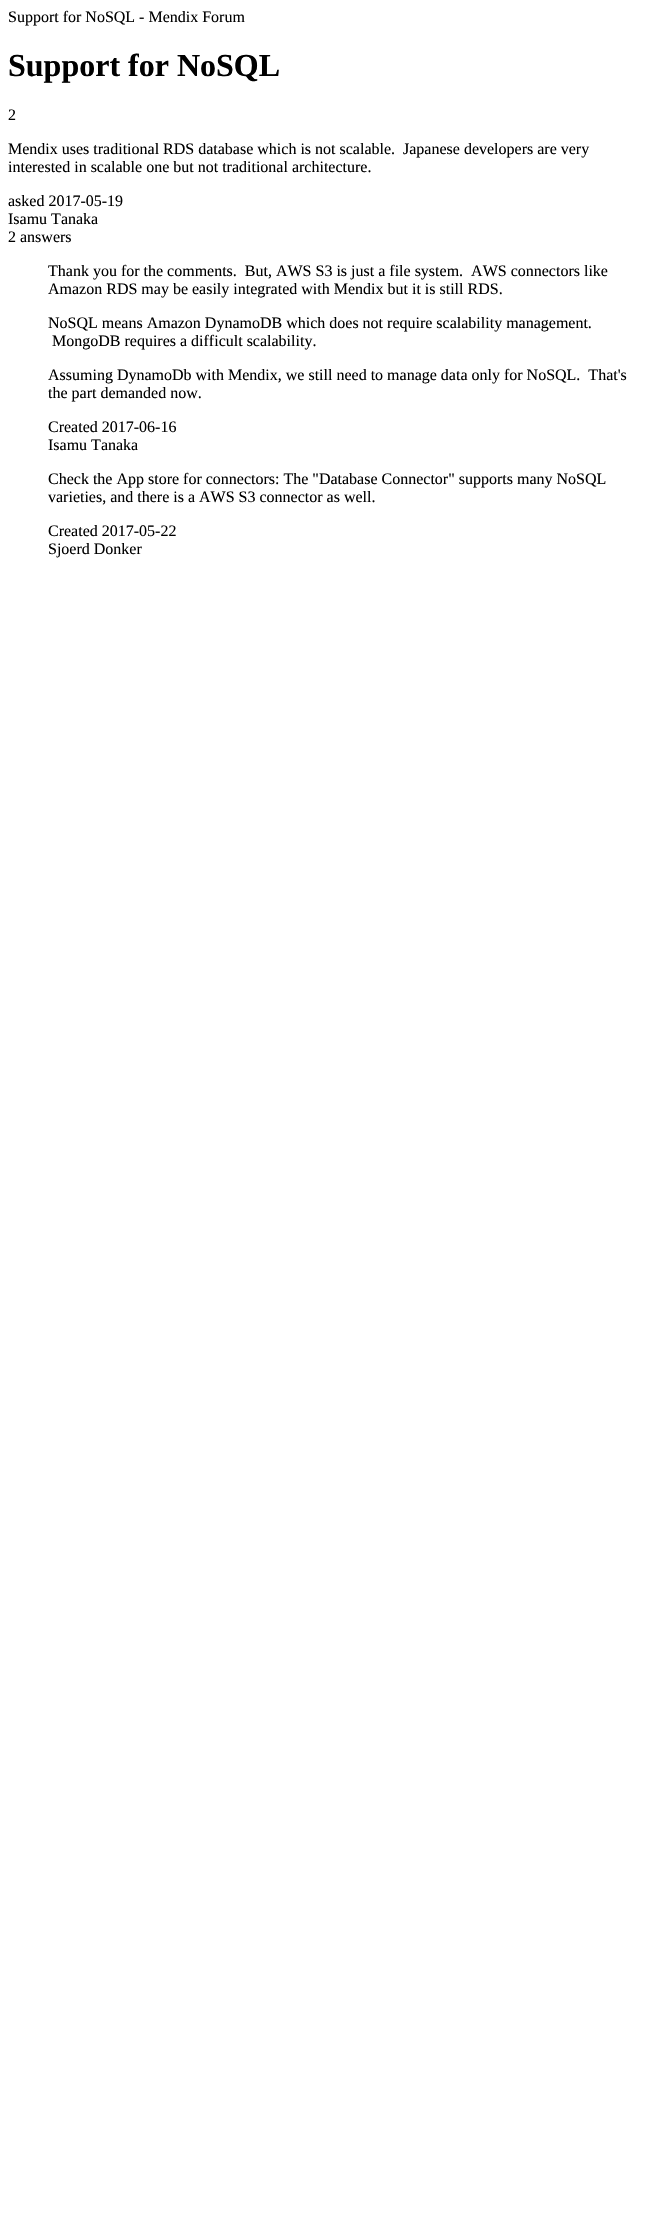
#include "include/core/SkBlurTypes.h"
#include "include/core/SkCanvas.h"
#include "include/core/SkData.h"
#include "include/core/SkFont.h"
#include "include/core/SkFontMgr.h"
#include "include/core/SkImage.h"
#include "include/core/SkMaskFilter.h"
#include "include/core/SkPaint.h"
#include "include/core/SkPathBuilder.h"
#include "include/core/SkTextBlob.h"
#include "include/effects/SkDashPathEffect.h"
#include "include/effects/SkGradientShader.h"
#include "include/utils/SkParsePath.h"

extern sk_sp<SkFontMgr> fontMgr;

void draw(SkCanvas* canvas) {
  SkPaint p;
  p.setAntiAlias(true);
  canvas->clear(SK_ColorWHITE);
  SkFont font1(fontMgr->matchFamilyStyle("Liberation Serif", SkFontStyle::Normal()), 16);
  font1.setSubpixel(true);
  p.setColor(SK_ColorBLACK);
  canvas->drawString("Support for NoSQL - Mendix Forum", 8, 22, font1, p);
  SkFont font2(fontMgr->matchFamilyStyle("Liberation Serif", SkFontStyle::Bold()), 32);
  font2.setSubpixel(true);
  canvas->drawString("Support for NoSQL", 8, 76, font2, p);
  canvas->drawString("2", 8, 120, font1, p);
  canvas->drawString("Mendix uses traditional RDS database which is not scalable.  Japanese developers are very", 8, 154, font1, p);
  canvas->drawString("interested in scalable one but not traditional architecture.", 8, 172, font1, p);
  canvas->drawString("asked 2017-05-19", 8, 206, font1, p);
  canvas->drawString("Isamu Tanaka", 8, 224, font1, p);
  canvas->drawString("2 answers", 8, 242, font1, p);
  canvas->drawString("Thank you for the comments.  But, AWS S3 is just a file system.  AWS connectors like", 48, 276, font1, p);
  canvas->drawString("Amazon RDS may be easily integrated with Mendix but it is still RDS.", 48, 294, font1, p);
  canvas->drawString("NoSQL means Amazon DynamoDB which does not require scalability management.", 48, 328, font1, p);
  canvas->drawString("MongoDB requires a difficult scalability.", 52, 346, font1, p);
  canvas->drawString("Assuming DynamoDb with Mendix, we still need to manage data only for NoSQL.  That's", 48, 380, font1, p);
  canvas->drawString("the part demanded now.", 48, 398, font1, p);
  canvas->drawString("Created 2017-06-16", 48, 432, font1, p);
  canvas->drawString("Isamu Tanaka", 48, 450, font1, p);
  canvas->drawString("Check the App store for connectors: The \"Database Connector\" supports many NoSQL", 48, 484, font1, p);
  canvas->drawString("varieties, and there is a AWS S3 connector as well.", 48, 502, font1, p);
  canvas->drawString("Created 2017-05-22", 48, 536, font1, p);
  canvas->drawString("Sjoerd Donker", 48, 554, font1, p);
}
